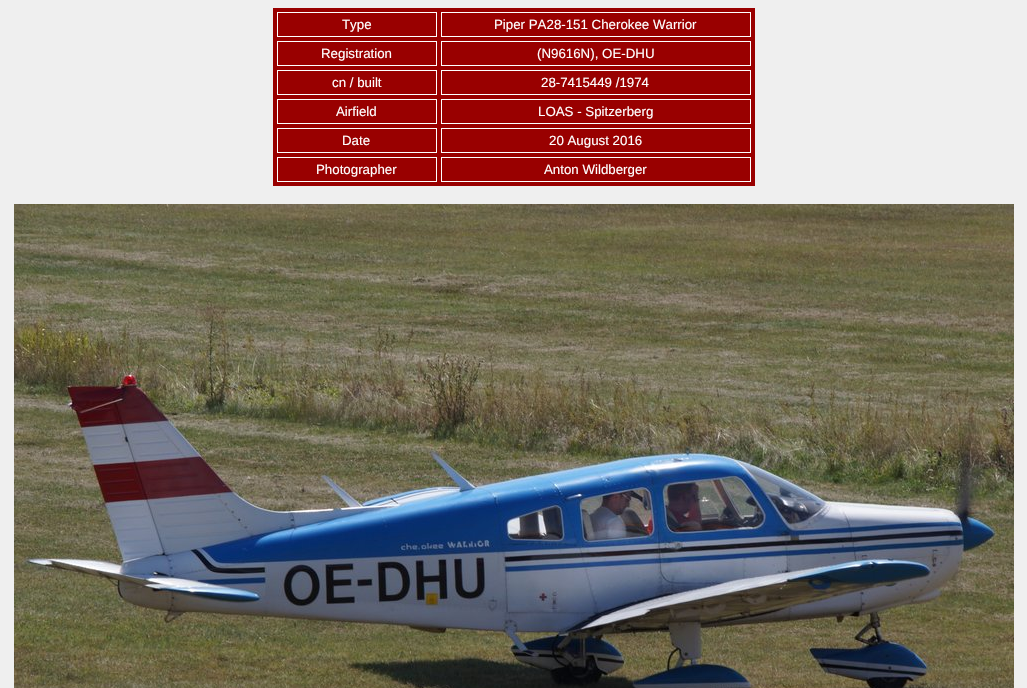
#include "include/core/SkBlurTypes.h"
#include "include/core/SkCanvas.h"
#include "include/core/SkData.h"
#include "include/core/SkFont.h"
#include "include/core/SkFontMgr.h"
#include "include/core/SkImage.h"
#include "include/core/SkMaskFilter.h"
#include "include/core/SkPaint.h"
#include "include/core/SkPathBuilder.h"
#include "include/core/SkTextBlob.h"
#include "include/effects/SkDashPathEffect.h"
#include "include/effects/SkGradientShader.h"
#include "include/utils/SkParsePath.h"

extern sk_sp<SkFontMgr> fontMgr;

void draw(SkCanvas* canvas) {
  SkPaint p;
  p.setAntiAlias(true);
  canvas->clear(SkColorSetRGB(239, 239, 239));
  p.setColor(SkColorSetRGB(153, 0, 0));
  canvas->drawRect(SkRect::MakeLTRB(273, 8, 755, 186), p);
  p.setStyle(SkPaint::kStroke_Style);
  p.setStrokeWidth(1);
  p.setColor(SK_ColorWHITE);
  canvas->drawRect(SkRect::MakeLTRB(277.5f, 12.5f, 436.5f, 36.5f), p);
  canvas->drawRect(SkRect::MakeLTRB(441.5f, 12.5f, 750.5f, 36.5f), p);
  canvas->drawRect(SkRect::MakeLTRB(277.5f, 41.5f, 436.5f, 65.5f), p);
  canvas->drawRect(SkRect::MakeLTRB(441.5f, 41.5f, 750.5f, 65.5f), p);
  canvas->drawRect(SkRect::MakeLTRB(277.5f, 70.5f, 436.5f, 94.5f), p);
  canvas->drawRect(SkRect::MakeLTRB(441.5f, 70.5f, 750.5f, 94.5f), p);
  canvas->drawRect(SkRect::MakeLTRB(277.5f, 99.5f, 436.5f, 123.5f), p);
  canvas->drawRect(SkRect::MakeLTRB(441.5f, 99.5f, 750.5f, 123.5f), p);
  canvas->drawRect(SkRect::MakeLTRB(277.5f, 128.5f, 436.5f, 152.5f), p);
  canvas->drawRect(SkRect::MakeLTRB(441.5f, 128.5f, 750.5f, 152.5f), p);
  canvas->drawRect(SkRect::MakeLTRB(277.5f, 157.5f, 436.5f, 181.5f), p);
  canvas->drawRect(SkRect::MakeLTRB(441.5f, 157.5f, 750.5f, 181.5f), p);
  canvas->drawImageRect(SkImages::DeferredFromEncodedData(SkData::MakeFromFileName("images/1.png")), SkRect::MakeLTRB(14, 204, 1014, 688), SkSamplingOptions());
  SkFont font1(fontMgr->matchFamilyStyle("Liberation Sans", SkFontStyle::Normal()), 13.3f);
  font1.setSubpixel(true);
  p.setStyle(SkPaint::kFill_Style);
  canvas->drawString("Type", 342, 29, font1, p);
  canvas->drawString("Piper PA28-151 Cherokee Warrior", 494, 29, font1, p);
  canvas->drawString("Registration", 321, 58, font1, p);
  canvas->drawString("(N9616N), OE-DHU", 537, 58, font1, p);
  canvas->drawString("cn / built", 332, 87, font1, p);
  canvas->drawString("28-7415449 /1974", 541, 87, font1, p);
  canvas->drawString("Airfield", 336, 116, font1, p);
  canvas->drawString("LOAS - Spitzerberg", 538, 116, font1, p);
  canvas->drawString("Date", 342, 145, font1, p);
  canvas->drawString("20 August 2016", 549, 145, font1, p);
  canvas->drawString("Photographer", 316, 174, font1, p);
  canvas->drawString("Anton Wildberger", 544, 174, font1, p);
}
